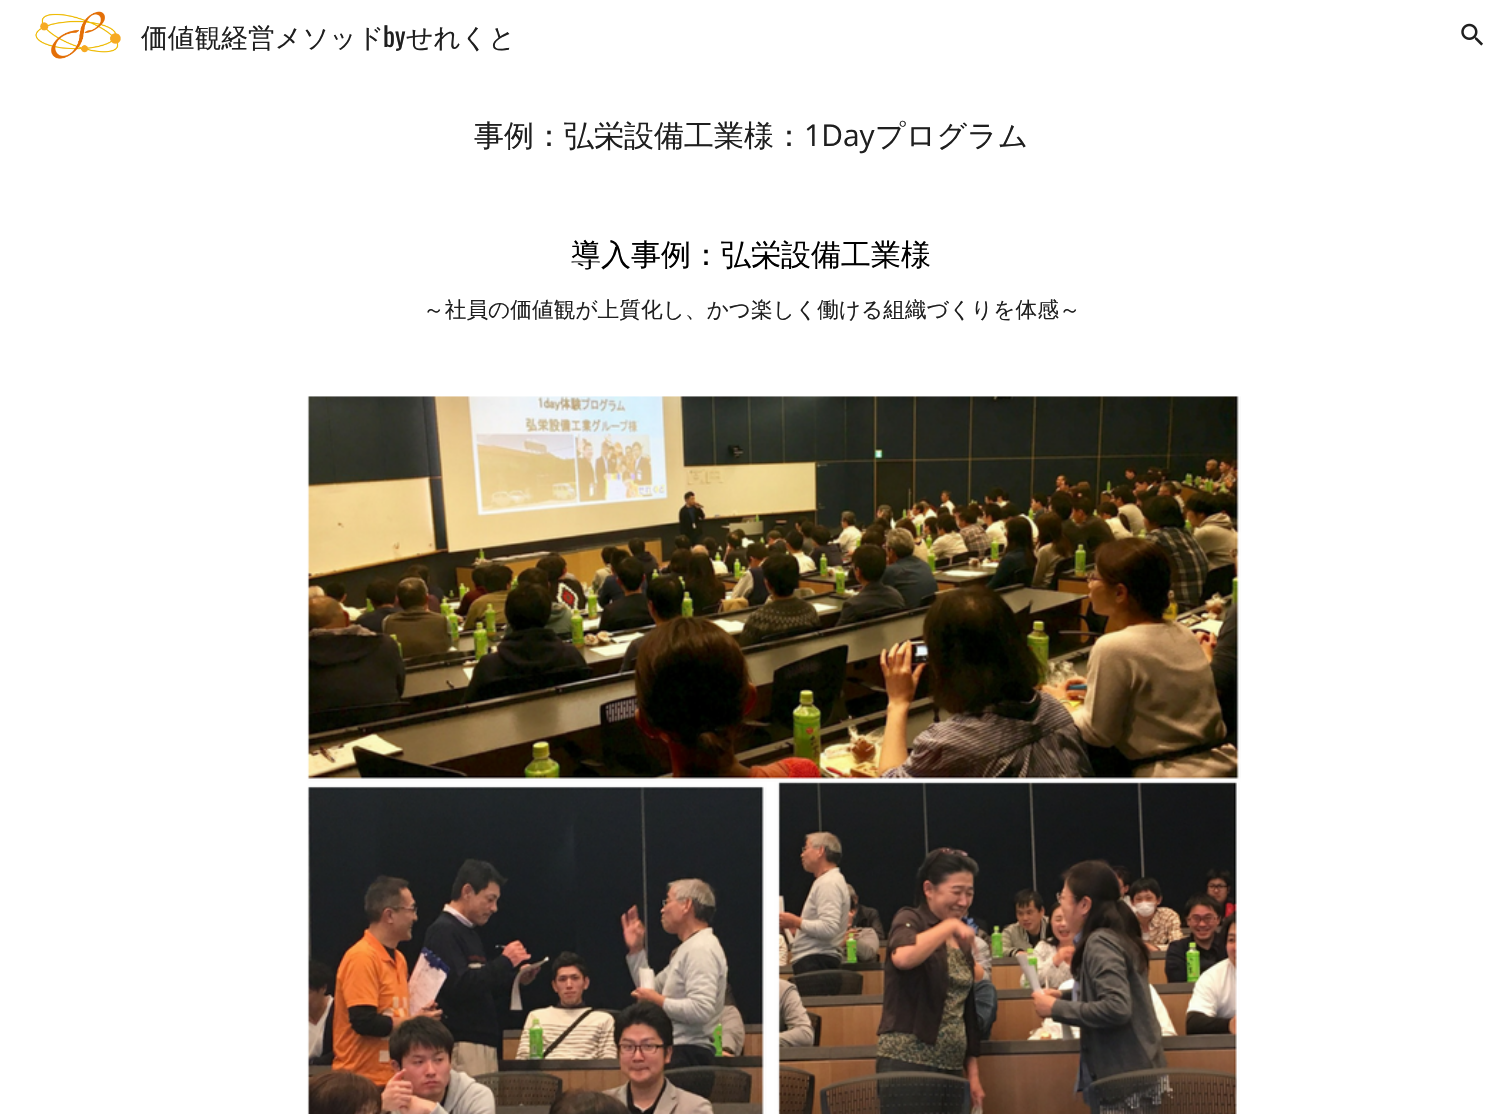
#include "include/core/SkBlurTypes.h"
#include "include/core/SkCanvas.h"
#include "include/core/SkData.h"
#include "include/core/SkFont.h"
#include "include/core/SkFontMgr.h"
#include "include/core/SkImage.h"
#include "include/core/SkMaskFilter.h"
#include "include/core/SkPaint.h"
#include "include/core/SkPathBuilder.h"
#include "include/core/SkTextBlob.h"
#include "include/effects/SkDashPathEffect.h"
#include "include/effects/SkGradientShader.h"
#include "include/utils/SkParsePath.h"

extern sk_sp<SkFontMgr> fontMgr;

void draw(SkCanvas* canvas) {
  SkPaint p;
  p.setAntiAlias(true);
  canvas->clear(SK_ColorWHITE);
  canvas->drawImageRect(SkImages::DeferredFromEncodedData(SkData::MakeFromFileName("images/1.png")), SkRect::MakeLTRB(35, 11, 121, 59), SkSamplingOptions());
  canvas->drawImageRect(SkImages::DeferredFromEncodedData(SkData::MakeFromFileName("images/2.png")), SkRect::MakeLTRB(1461, 23, 1483, 46), SkSamplingOptions());
  canvas->drawImageRect(SkImages::DeferredFromEncodedData(SkData::MakeFromFileName("images/3.png")), SkRect::MakeLTRB(307, 396, 1241, 1114), SkSamplingOptions());
  SkFont font1(fontMgr->matchFamilyStyle("WenQuanYi Zen Hei", SkFontStyle(500, SkFontStyle::kNormal_Width, SkFontStyle::kUpright_Slant)), 26.75f);
  font1.setSubpixel(true);
  p.setColor(SkColorSetRGB(31, 31, 31));
  canvas->drawString("価値観経営メソッド", 141, 47, font1, p);
  SkFont font2(fontMgr->matchFamilyStyle("Oswald", SkFontStyle::Normal()), 26.75f);
  font2.setSubpixel(true);
  canvas->drawString("by", 383, 47, font2, p);
  canvas->drawString("せれくと", 406, 47, font1, p);
  SkFont font3(fontMgr->matchFamilyStyle("WenQuanYi Zen Hei", SkFontStyle(500, SkFontStyle::kNormal_Width, SkFontStyle::kUpright_Slant)), 30);
  font3.setSubpixel(true);
  canvas->drawString("事例：弘栄設備工業様：", 474, 146, font3, p);
  SkFont font4(fontMgr->matchFamilyStyle("Open Sans", SkFontStyle::Normal()), 30);
  font4.setSubpixel(true);
  canvas->drawString("1Day", 804, 146, font4, p);
  canvas->drawString("プログラム", 875, 146, font3, p);
  p.setColor(SK_ColorBLACK);
  canvas->drawString("導入事例：弘栄設備工業様", 571, 265, font3, p);
  SkFont font5(fontMgr->matchFamilyStyle("WenQuanYi Zen Hei", SkFontStyle(500, SkFontStyle::kNormal_Width, SkFontStyle::kUpright_Slant)), 21.7f);
  font5.setSubpixel(true);
  p.setColor(SkColorSetRGB(31, 31, 31));
  canvas->drawString("～社員の価値観が上質化し、かつ楽しく働ける組織づくりを体感～", 423, 317, font5, p);
}
